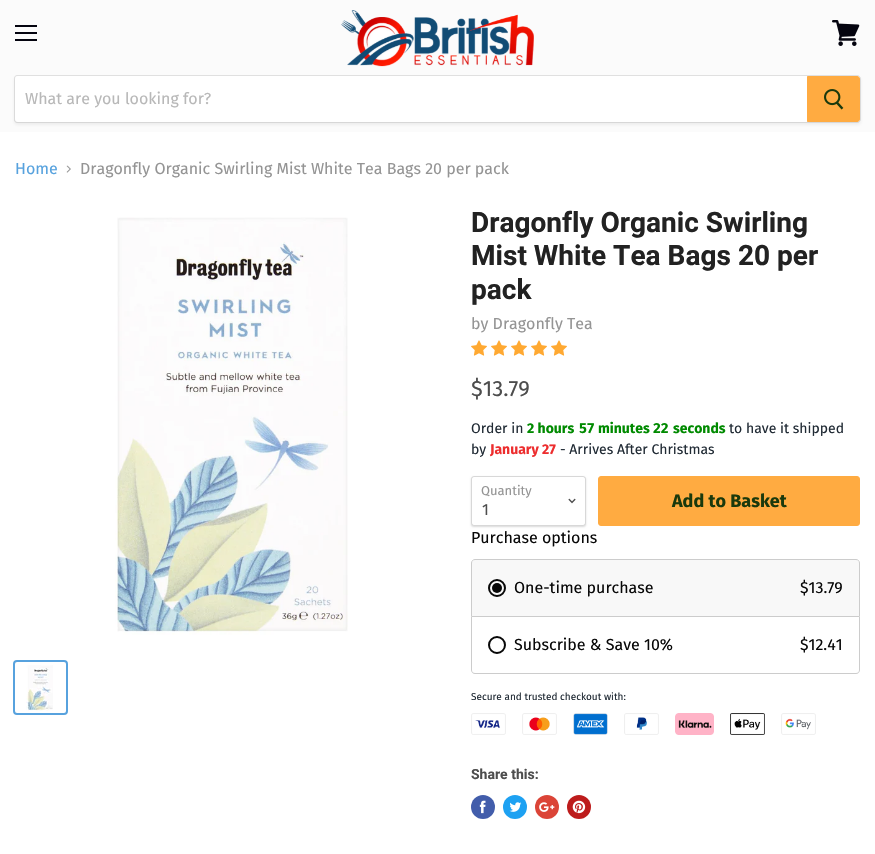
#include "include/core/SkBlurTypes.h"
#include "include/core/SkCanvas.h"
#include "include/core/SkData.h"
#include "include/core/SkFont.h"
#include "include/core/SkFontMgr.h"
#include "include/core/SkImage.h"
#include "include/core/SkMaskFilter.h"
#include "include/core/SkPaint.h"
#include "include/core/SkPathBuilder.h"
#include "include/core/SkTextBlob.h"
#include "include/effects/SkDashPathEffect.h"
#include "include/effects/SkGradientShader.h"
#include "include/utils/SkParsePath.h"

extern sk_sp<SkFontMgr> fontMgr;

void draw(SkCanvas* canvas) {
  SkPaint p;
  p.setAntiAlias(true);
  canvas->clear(SK_ColorWHITE);
  p.setColor(SkColorSetRGB(251, 251, 251));
  canvas->drawRect(SkRect::MakeLTRB(0, 0, 875, 132), p);
  p.setColor(SkColorSetRGB(4, 4, 15));
  canvas->drawRect(SkRect::MakeLTRB(15, 25, 37, 27), p);
  canvas->drawRect(SkRect::MakeLTRB(15, 32, 37, 34), p);
  canvas->drawRect(SkRect::MakeLTRB(15, 39, 37, 41), p);
  canvas->drawImageRect(SkImages::DeferredFromEncodedData(SkData::MakeFromFileName("images/1.png")), SkRect::MakeLTRB(832, 20, 860, 46), SkSamplingOptions());
  canvas->drawImageRect(SkImages::DeferredFromEncodedData(SkData::MakeFromFileName("images/2.png")), SkRect::MakeLTRB(341, 10, 534, 67), SkSamplingOptions());
  p.setColor(SkColorSetARGB(28, 127, 127, 127));
  p.setMaskFilter(SkMaskFilter::MakeBlur(kNormal_SkBlurStyle, 1.5f));
  canvas->drawRoundRect(SkRect::MakeLTRB(14, 77, 861, 125), 4, 4, p);
  p.setMaskFilter(nullptr);
  p.setStyle(SkPaint::kStroke_Style);
  p.setStrokeWidth(1);
  p.setColor(SkColorSetARGB(51, 127, 127, 127));
  canvas->drawPath(SkPathBuilder().moveTo(17, 75.5f).lineTo(857, 75.5f).cubicTo(859, 75.5f, 860.5f, 77, 860.5f, 79).lineTo(860.5f, 119).cubicTo(860.5f, 121, 859, 122.5f, 857, 122.5f).lineTo(17, 122.5f).cubicTo(15.5f, 122.5f, 14.5f, 121.5f, 14.5f, 120).lineTo(14.5f, 78).cubicTo(14.5f, 76.5f, 15.5f, 75.5f, 17, 75.5f).close().detach(), p);
  p.setStyle(SkPaint::kFill_Style);
  p.setColor(SK_ColorWHITE);
  canvas->drawPath(SkPathBuilder().moveTo(18, 76).lineTo(807, 76).lineTo(807, 122).lineTo(18, 122).cubicTo(16.5f, 122, 15, 120.5f, 15, 119).lineTo(15, 79).cubicTo(15, 77.5f, 16.5f, 76, 18, 76).close().detach(), p);
  p.setColor(SkColorSetRGB(255, 171, 65));
  canvas->drawPath(SkPathBuilder().moveTo(807.5f, 76.5f).lineTo(857, 76.5f).cubicTo(858.5f, 76.5f, 859.5f, 77.5f, 859.5f, 79).lineTo(859.5f, 119).cubicTo(859.5f, 120.5f, 858.5f, 121.5f, 857, 121.5f).lineTo(807.5f, 121.5f).close().detach(), p);
  p.setStyle(SkPaint::kStroke_Style);
  canvas->drawPath(SkPathBuilder().moveTo(807.5f, 76.5f).lineTo(857, 76.5f).cubicTo(858.5f, 76.5f, 859.5f, 77.5f, 859.5f, 79).lineTo(859.5f, 119).cubicTo(859.5f, 120.5f, 858.5f, 121.5f, 857, 121.5f).lineTo(807.5f, 121.5f).close().detach(), p);
  canvas->drawImageRect(SkImages::DeferredFromEncodedData(SkData::MakeFromFileName("images/3.png")), SkRect::MakeLTRB(824, 89, 844, 110), SkSamplingOptions());
  canvas->drawImageRect(SkImages::DeferredFromEncodedData(SkData::MakeFromFileName("images/4.png")), SkRect::MakeLTRB(66, 165, 71, 173), SkSamplingOptions());
  canvas->drawImageRect(SkImages::DeferredFromEncodedData(SkData::MakeFromFileName("images/5.png")), SkRect::MakeLTRB(115, 217, 348, 635), SkSamplingOptions());
  p.setStrokeWidth(2);
  p.setColor(SkColorSetRGB(87, 162, 222));
  canvas->drawRoundRect(SkRect::MakeLTRB(14, 661, 67, 714), 3, 3, p);
  canvas->drawImageRect(SkImages::DeferredFromEncodedData(SkData::MakeFromFileName("images/6.png")), SkRect::MakeLTRB(26, 665, 53, 711), SkSamplingOptions());
  canvas->drawImageRect(SkImages::DeferredFromEncodedData(SkData::MakeFromFileName("images/7.png")), SkRect::MakeLTRB(471, 340, 487, 356), SkSamplingOptions());
  canvas->drawImageRect(SkImages::DeferredFromEncodedData(SkData::MakeFromFileName("images/7.png")), SkRect::MakeLTRB(491, 340, 507, 356), SkSamplingOptions());
  canvas->drawImageRect(SkImages::DeferredFromEncodedData(SkData::MakeFromFileName("images/7.png")), SkRect::MakeLTRB(511, 340, 527, 356), SkSamplingOptions());
  canvas->drawImageRect(SkImages::DeferredFromEncodedData(SkData::MakeFromFileName("images/7.png")), SkRect::MakeLTRB(531, 340, 547, 356), SkSamplingOptions());
  canvas->drawImageRect(SkImages::DeferredFromEncodedData(SkData::MakeFromFileName("images/7.png")), SkRect::MakeLTRB(551, 340, 567, 356), SkSamplingOptions());
  canvas->save();
  canvas->clipPath(SkPathBuilder(SkPathFillType::kEvenOdd).moveTo(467, 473).lineTo(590, 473).lineTo(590, 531).lineTo(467, 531).close().moveTo(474, 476).lineTo(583, 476).cubicTo(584.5f, 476, 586, 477.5f, 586, 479).lineTo(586, 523).cubicTo(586, 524.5f, 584.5f, 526, 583, 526).lineTo(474, 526).cubicTo(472.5f, 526, 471, 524.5f, 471, 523).lineTo(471, 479).cubicTo(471, 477.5f, 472.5f, 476, 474, 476).close().detach(), true);
  p.setStyle(SkPaint::kFill_Style);
  p.setColor(SkColorSetARGB(38, 0, 0, 0));
  p.setMaskFilter(SkMaskFilter::MakeBlur(kNormal_SkBlurStyle, 1));
  canvas->drawRoundRect(SkRect::MakeLTRB(471, 477, 586, 527), 3, 3, p);
  p.setMaskFilter(nullptr);
  canvas->restore();
  p.setStyle(SkPaint::kStroke_Style);
  p.setStrokeWidth(1);
  p.setColor(SkColorSetARGB(77, 127, 127, 127));
  canvas->drawRoundRect(SkRect::MakeLTRB(471.5f, 476.5f, 585.5f, 525.5f), 2.5f, 2.5f, p);
  canvas->drawImageRect(SkImages::DeferredFromEncodedData(SkData::MakeFromFileName("images/8.png")), SkRect::MakeLTRB(568, 498, 576, 504), SkSamplingOptions());
  p.setStyle(SkPaint::kFill_Style);
  p.setColor(SkColorSetRGB(255, 171, 65));
  canvas->drawRoundRect(SkRect::MakeLTRB(598.5f, 476.5f, 859.5f, 525.5f), 2.5f, 2.5f, p);
  p.setStyle(SkPaint::kStroke_Style);
  canvas->drawRoundRect(SkRect::MakeLTRB(598.5f, 476.5f, 859.5f, 525.5f), 2.5f, 2.5f, p);
  p.setStyle(SkPaint::kFill_Style);
  p.setColor(SkColorSetRGB(248, 248, 248));
  canvas->drawPath(SkPathBuilder().moveTo(475, 559.5f).lineTo(856, 559.5f).cubicTo(858, 559.5f, 859.5f, 561, 859.5f, 563).lineTo(859.5f, 616.5f).lineTo(471.5f, 616.5f).lineTo(471.5f, 563).cubicTo(471.5f, 561, 473, 559.5f, 475, 559.5f).close().detach(), p);
  p.setStyle(SkPaint::kStroke_Style);
  p.setColor(SkColorSetRGB(204, 204, 204));
  canvas->drawPath(SkPathBuilder().moveTo(475, 559.5f).lineTo(856, 559.5f).cubicTo(858, 559.5f, 859.5f, 561, 859.5f, 563).lineTo(859.5f, 616.5f).lineTo(471.5f, 616.5f).lineTo(471.5f, 563).cubicTo(471.5f, 561, 473, 559.5f, 475, 559.5f).close().detach(), p);
  p.setStrokeWidth(2);
  p.setColor(SkColorSetRGB(8, 8, 8));
  canvas->drawCircle(497, 588, 8, p);
  p.setStyle(SkPaint::kFill_Style);
  canvas->drawCircle(497, 588, 5, p);
  p.setColor(SkColorSetRGB(204, 204, 204));
  canvas->drawPath(SkPathBuilder(SkPathFillType::kEvenOdd).moveTo(471, 617).lineTo(860, 617).lineTo(860, 670).cubicTo(860, 672, 858, 674, 856, 674).lineTo(475, 674).cubicTo(473, 674, 471, 672, 471, 670).close().moveTo(472, 617).lineTo(859, 617).lineTo(859, 670).cubicTo(859, 672, 858, 673, 856, 673).lineTo(475, 673).cubicTo(473, 673, 472, 672, 472, 670).close().detach(), p);
  p.setStyle(SkPaint::kStroke_Style);
  p.setColor(SkColorSetRGB(8, 8, 8));
  canvas->drawCircle(497, 645, 8, p);
  canvas->drawImageRect(SkImages::DeferredFromEncodedData(SkData::MakeFromFileName("images/9.png")), SkRect::MakeLTRB(471, 713, 506, 735), SkSamplingOptions());
  canvas->drawImageRect(SkImages::DeferredFromEncodedData(SkData::MakeFromFileName("images/10.png")), SkRect::MakeLTRB(522, 713, 557, 735), SkSamplingOptions());
  canvas->drawImageRect(SkImages::DeferredFromEncodedData(SkData::MakeFromFileName("images/11.png")), SkRect::MakeLTRB(573, 713, 608, 735), SkSamplingOptions());
  canvas->drawImageRect(SkImages::DeferredFromEncodedData(SkData::MakeFromFileName("images/12.png")), SkRect::MakeLTRB(624, 713, 659, 735), SkSamplingOptions());
  canvas->drawImageRect(SkImages::DeferredFromEncodedData(SkData::MakeFromFileName("images/13.png")), SkRect::MakeLTRB(675, 713, 714, 735), SkSamplingOptions());
  canvas->drawImageRect(SkImages::DeferredFromEncodedData(SkData::MakeFromFileName("images/14.png")), SkRect::MakeLTRB(730, 713, 765, 735), SkSamplingOptions());
  canvas->drawImageRect(SkImages::DeferredFromEncodedData(SkData::MakeFromFileName("images/15.png")), SkRect::MakeLTRB(781, 713, 816, 735), SkSamplingOptions());
  p.setStyle(SkPaint::kFill_Style);
  p.setColor(SkColorSetRGB(66, 93, 171));
  canvas->drawCircle(483, 807, 12, p);
  canvas->drawImageRect(SkImages::DeferredFromEncodedData(SkData::MakeFromFileName("images/16.png")), SkRect::MakeLTRB(479, 800, 486, 814), SkSamplingOptions());
  p.setColor(SkColorSetRGB(29, 161, 242));
  canvas->drawCircle(515, 807, 12, p);
  canvas->drawImageRect(SkImages::DeferredFromEncodedData(SkData::MakeFromFileName("images/17.png")), SkRect::MakeLTRB(509, 802, 522, 812), SkSamplingOptions());
  p.setColor(SkColorSetRGB(219, 68, 55));
  canvas->drawCircle(547, 807, 12, p);
  canvas->drawImageRect(SkImages::DeferredFromEncodedData(SkData::MakeFromFileName("images/18.png")), SkRect::MakeLTRB(539, 802, 555, 812), SkSamplingOptions());
  p.setColor(SkColorSetRGB(189, 28, 28));
  canvas->drawCircle(579, 807, 12, p);
  canvas->drawImageRect(SkImages::DeferredFromEncodedData(SkData::MakeFromFileName("images/19.png")), SkRect::MakeLTRB(572, 800, 586, 814), SkSamplingOptions());
  SkFont font1(fontMgr->matchFamilyStyle("Fira Sans", SkFontStyle::Normal()), 16);
  font1.setSubpixel(true);
  p.setColor(SkColorSetRGB(184, 184, 184));
  canvas->drawString("What are you looking for?", 25, 104, font1, p);
  p.setColor(SkColorSetRGB(87, 162, 222));
  canvas->drawString("Home", 15, 174, font1, p);
  p.setColor(SkColorSetRGB(148, 148, 148));
  canvas->drawString("Dragonfly Organic Swirling Mist White Tea Bags 20 per pack", 80, 174, font1, p);
  SkFont font2(fontMgr->matchFamilyStyle("Heebo", SkFontStyle::Bold()), 28);
  font2.setSubpixel(true);
  p.setColor(SkColorSetRGB(34, 34, 34));
  canvas->drawString("Dragonfly Organic Swirling", 471, 232, font2, p);
  canvas->drawString("Mist White Tea Bags 20 per", 471, 265, font2, p);
  canvas->drawString("pack", 471, 299, font2, p);
  p.setColor(SkColorSetRGB(148, 148, 148));
  canvas->drawString("by Dragonfly Tea", 471, 329, font1, p);
  SkFont font3(fontMgr->matchFamilyStyle("Fira Sans", SkFontStyle::Normal()), 22);
  font3.setSubpixel(true);
  p.setColor(SkColorSetRGB(77, 77, 77));
  canvas->drawString("$13.79", 471, 396, font3, p);
  SkFont font4(fontMgr->matchFamilyStyle("Fira Sans", SkFontStyle::Normal()), 14);
  font4.setSubpixel(true);
  p.setColor(SkColorSetRGB(33, 43, 53));
  canvas->drawString("Order in", 471, 433, font4, p);
  SkFont font5(fontMgr->matchFamilyStyle("Fira Sans", SkFontStyle::Bold()), 14);
  font5.setSubpixel(true);
  p.setColor(SkColorSetRGB(0, 138, 0));
  canvas->drawString("2 hours", 527, 433, font5, p);
  SkFont font6(fontMgr->matchFamilyStyle("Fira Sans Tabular", SkFontStyle::Bold()), 14);
  font6.setSubpixel(true);
  canvas->drawString("57", 579, 433, font6, p);
  canvas->drawString("minutes", 598, 433, font5, p);
  canvas->drawString("22", 653, 433, font6, p);
  canvas->drawString("seconds", 673, 433, font5, p);
  p.setColor(SkColorSetRGB(33, 43, 53));
  canvas->drawString("to have it shipped", 729, 433, font4, p);
  canvas->drawString("by", 471, 454, font4, p);
  p.setColor(SkColorSetRGB(237, 45, 46));
  canvas->drawString("January 27", 490, 454, font5, p);
  p.setColor(SkColorSetRGB(33, 43, 53));
  canvas->drawString("- Arrives After Christmas", 560, 454, font4, p);
  SkFont font7(fontMgr->matchFamilyStyle("Fira Sans", SkFontStyle::Normal()), 13);
  font7.setSubpixel(true);
  p.setColor(SkColorSetRGB(148, 148, 148));
  canvas->drawString("Quantity", 481, 495, font7, p);
  p.setColor(SkColorSetRGB(77, 77, 77));
  canvas->drawString("1", 482, 515, font1, p);
  SkFont font8(fontMgr->matchFamilyStyle("Fira Sans", SkFontStyle::Bold()), 18);
  font8.setSubpixel(true);
  p.setColor(SkColorSetRGB(26, 57, 12));
  canvas->drawString("Add to Basket", 672, 507, font8, p);
  p.setColor(SkColorSetRGB(8, 8, 8));
  canvas->drawString("Purchase options", 471, 543, font1, p);
  canvas->drawString("One-time purchase", 514, 593, font1, p);
  canvas->drawString("$13.79", 800, 593, font1, p);
  canvas->drawString("Subscribe & Save 10%", 514, 650, font1, p);
  canvas->drawString("$12.41", 800, 650, font1, p);
  SkFont font9(fontMgr->matchFamilyStyle("Fira Sans", SkFontStyle::Normal()), 10);
  font9.setSubpixel(true);
  p.setColor(SkColorSetRGB(33, 43, 53));
  canvas->drawString("Secure and trusted checkout with:", 471, 700, font9, p);
  SkFont font10(fontMgr->matchFamilyStyle("Heebo", SkFontStyle::Bold()), 14);
  font10.setSubpixel(true);
  p.setColor(SkColorSetRGB(77, 77, 77));
  canvas->drawString("Share this:", 471, 779, font10, p);
}
